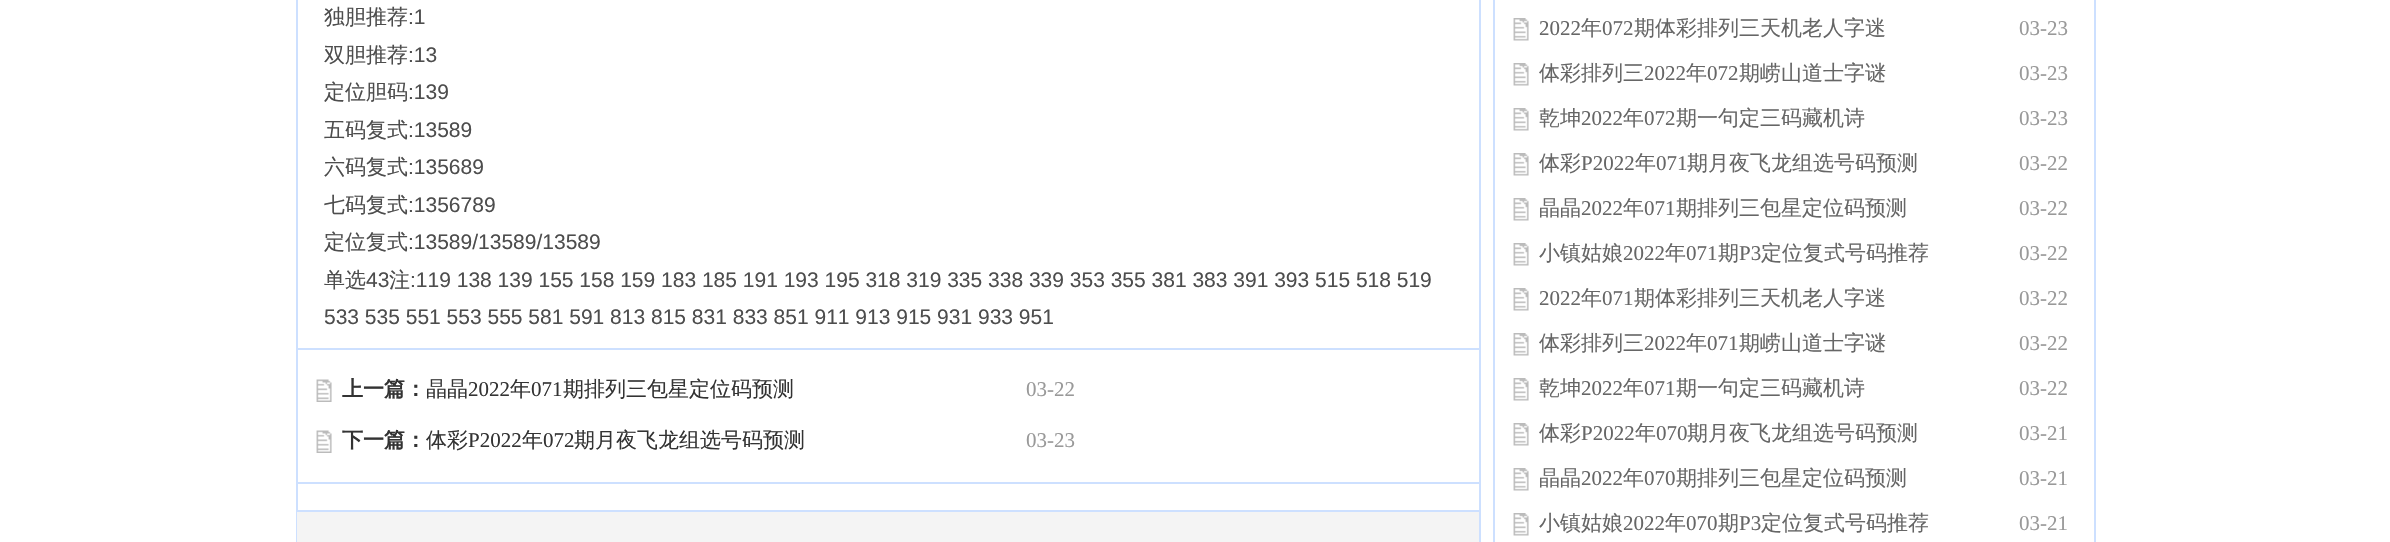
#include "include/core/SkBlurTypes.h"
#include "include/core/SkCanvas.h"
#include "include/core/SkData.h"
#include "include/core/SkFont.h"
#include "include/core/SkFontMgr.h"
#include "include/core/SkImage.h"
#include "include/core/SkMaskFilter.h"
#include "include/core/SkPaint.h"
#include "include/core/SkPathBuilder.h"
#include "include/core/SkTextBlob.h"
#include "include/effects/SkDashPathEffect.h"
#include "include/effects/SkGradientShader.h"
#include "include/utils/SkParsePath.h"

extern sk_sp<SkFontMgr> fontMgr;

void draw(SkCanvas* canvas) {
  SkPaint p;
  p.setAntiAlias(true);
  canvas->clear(SK_ColorWHITE);
  p.setStyle(SkPaint::kStroke_Style);
  p.setStrokeWidth(2);
  p.setColor(SkColorSetRGB(205, 224, 255));
  canvas->drawRect(SkRect::MakeLTRB(297, -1, 1480, 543), p);
  p.setStyle(SkPaint::kFill_Style);
  canvas->drawRect(SkRect::MakeLTRB(297, 348, 1479, 350), p);
  canvas->drawRect(SkRect::MakeLTRB(297, 482, 1479, 484), p);
  canvas->drawImageRect(SkImages::DeferredFromEncodedData(SkData::MakeFromFileName("images/1.png")), SkRect::MakeLTRB(316, 379, 332, 402), SkSamplingOptions());
  canvas->drawImageRect(SkImages::DeferredFromEncodedData(SkData::MakeFromFileName("images/1.png")), SkRect::MakeLTRB(316, 430, 332, 453), SkSamplingOptions());
  p.setColor(SkColorSetRGB(244, 244, 244));
  canvas->drawRect(SkRect::MakeLTRB(297, 512, 1479, 542), p);
  p.setColor(SkColorSetRGB(205, 224, 255));
  canvas->drawRect(SkRect::MakeLTRB(297, 510, 1479, 512), p);
  p.setStyle(SkPaint::kStroke_Style);
  canvas->drawRect(SkRect::MakeLTRB(1494, -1, 2095, 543), p);
  canvas->drawImageRect(SkImages::DeferredFromEncodedData(SkData::MakeFromFileName("images/2.png")), SkRect::MakeLTRB(1513, 18, 1529, 41), SkSamplingOptions());
  canvas->drawImageRect(SkImages::DeferredFromEncodedData(SkData::MakeFromFileName("images/2.png")), SkRect::MakeLTRB(1513, 63, 1529, 86), SkSamplingOptions());
  canvas->drawImageRect(SkImages::DeferredFromEncodedData(SkData::MakeFromFileName("images/2.png")), SkRect::MakeLTRB(1513, 108, 1529, 131), SkSamplingOptions());
  canvas->drawImageRect(SkImages::DeferredFromEncodedData(SkData::MakeFromFileName("images/2.png")), SkRect::MakeLTRB(1513, 153, 1529, 176), SkSamplingOptions());
  canvas->drawImageRect(SkImages::DeferredFromEncodedData(SkData::MakeFromFileName("images/2.png")), SkRect::MakeLTRB(1513, 198, 1529, 221), SkSamplingOptions());
  canvas->drawImageRect(SkImages::DeferredFromEncodedData(SkData::MakeFromFileName("images/2.png")), SkRect::MakeLTRB(1513, 243, 1529, 266), SkSamplingOptions());
  canvas->drawImageRect(SkImages::DeferredFromEncodedData(SkData::MakeFromFileName("images/2.png")), SkRect::MakeLTRB(1513, 288, 1529, 311), SkSamplingOptions());
  canvas->drawImageRect(SkImages::DeferredFromEncodedData(SkData::MakeFromFileName("images/2.png")), SkRect::MakeLTRB(1513, 333, 1529, 356), SkSamplingOptions());
  canvas->drawImageRect(SkImages::DeferredFromEncodedData(SkData::MakeFromFileName("images/2.png")), SkRect::MakeLTRB(1513, 378, 1529, 401), SkSamplingOptions());
  canvas->drawImageRect(SkImages::DeferredFromEncodedData(SkData::MakeFromFileName("images/2.png")), SkRect::MakeLTRB(1513, 423, 1529, 446), SkSamplingOptions());
  canvas->drawImageRect(SkImages::DeferredFromEncodedData(SkData::MakeFromFileName("images/2.png")), SkRect::MakeLTRB(1513, 468, 1529, 491), SkSamplingOptions());
  canvas->drawImageRect(SkImages::DeferredFromEncodedData(SkData::MakeFromFileName("images/2.png")), SkRect::MakeLTRB(1513, 513, 1529, 536), SkSamplingOptions());
  SkFont font1(fontMgr->matchFamilyStyle("WenQuanYi Zen Hei", SkFontStyle(500, SkFontStyle::kNormal_Width, SkFontStyle::kUpright_Slant)), 21);
  font1.setSubpixel(true);
  p.setStyle(SkPaint::kFill_Style);
  p.setColor(SkColorSetRGB(77, 77, 77));
  canvas->drawString("独胆推荐", 324, 24, font1, p);
  SkFont font2(fontMgr->matchFamilyStyle("Liberation Sans", SkFontStyle::Normal()), 21);
  font2.setSubpixel(true);
  canvas->drawString(":1", 408, 24, font2, p);
  canvas->drawString("双胆推荐", 324, 62, font1, p);
  canvas->drawString(":13", 408, 62, font2, p);
  canvas->drawString("定位胆码", 324, 99, font1, p);
  canvas->drawString(":139", 408, 99, font2, p);
  canvas->drawString("五码复式", 324, 137, font1, p);
  canvas->drawString(":13589", 408, 137, font2, p);
  canvas->drawString("六码复式", 324, 174, font1, p);
  canvas->drawString(":135689", 408, 174, font2, p);
  canvas->drawString("七码复式", 324, 212, font1, p);
  canvas->drawString(":1356789", 408, 212, font2, p);
  canvas->drawString("定位复式", 324, 249, font1, p);
  canvas->drawString(":13589/13589/13589", 408, 249, font2, p);
  canvas->drawString("单选", 324, 287, font1, p);
  canvas->drawString("43", 366, 287, font2, p);
  canvas->drawString("注", 389, 287, font1, p);
  canvas->drawString(":119 138 139 155 158 159 183 185 191 193 195 318 319 335 338 339 353 355 381 383 391 393 515 518 519", 410, 287, font2, p);
  canvas->drawString("533 535 551 553 555 581 591 813 815 831 833 851 911 913 915 931 933 951", 324, 324, font2, p);
  SkFont font3(fontMgr->matchFamilyStyle("WenQuanYi Zen Hei", SkFontStyle::Bold()), 21);
  font3.setSubpixel(true);
  p.setColor(SkColorSetRGB(51, 51, 51));
  canvas->drawString("上一篇：", 342, 396, font3, p);
  canvas->drawString("晶晶", 426, 396, font1, p);
  SkFont font4(fontMgr->matchFamilyStyle("Liberation Serif", SkFontStyle::Normal()), 21);
  font4.setSubpixel(true);
  canvas->drawString("2022", 468, 396, font4, p);
  canvas->drawString("年", 510, 396, font1, p);
  canvas->drawString("071", 531, 396, font4, p);
  canvas->drawString("期排列三包星定位码预测", 563, 396, font1, p);
  p.setColor(SkColorSetRGB(153, 153, 153));
  canvas->drawString("03-22", 1026, 396, font4, p);
  p.setColor(SkColorSetRGB(51, 51, 51));
  canvas->drawString("下一篇：", 342, 447, font3, p);
  canvas->drawString("体彩", 426, 447, font1, p);
  canvas->drawString("P2022", 468, 447, font4, p);
  canvas->drawString("年", 522, 447, font1, p);
  canvas->drawString("072", 543, 447, font4, p);
  canvas->drawString("期月夜飞龙组选号码预测", 574, 447, font1, p);
  p.setColor(SkColorSetRGB(153, 153, 153));
  canvas->drawString("03-23", 1026, 447, font4, p);
  p.setColor(SkColorSetRGB(102, 102, 102));
  canvas->drawString("2022", 1539, 35, font4, p);
  canvas->drawString("年", 1581, 35, font1, p);
  canvas->drawString("072", 1602, 35, font4, p);
  canvas->drawString("期体彩排列三天机老人字迷", 1634, 35, font1, p);
  p.setColor(SkColorSetRGB(153, 153, 153));
  canvas->drawString("03-23", 2019, 35, font4, p);
  p.setColor(SkColorSetRGB(102, 102, 102));
  canvas->drawString("体彩排列三", 1539, 80, font1, p);
  canvas->drawString("2022", 1644, 80, font4, p);
  canvas->drawString("年", 1686, 80, font1, p);
  canvas->drawString("072", 1707, 80, font4, p);
  canvas->drawString("期崂山道士字谜", 1739, 80, font1, p);
  p.setColor(SkColorSetRGB(153, 153, 153));
  canvas->drawString("03-23", 2019, 80, font4, p);
  p.setColor(SkColorSetRGB(102, 102, 102));
  canvas->drawString("乾坤", 1539, 125, font1, p);
  canvas->drawString("2022", 1581, 125, font4, p);
  canvas->drawString("年", 1623, 125, font1, p);
  canvas->drawString("072", 1644, 125, font4, p);
  canvas->drawString("期一句定三码藏机诗", 1676, 125, font1, p);
  p.setColor(SkColorSetRGB(153, 153, 153));
  canvas->drawString("03-23", 2019, 125, font4, p);
  p.setColor(SkColorSetRGB(102, 102, 102));
  canvas->drawString("体彩", 1539, 170, font1, p);
  canvas->drawString("P2022", 1581, 170, font4, p);
  canvas->drawString("年", 1635, 170, font1, p);
  canvas->drawString("071", 1656, 170, font4, p);
  canvas->drawString("期月夜飞龙组选号码预测", 1687, 170, font1, p);
  p.setColor(SkColorSetRGB(153, 153, 153));
  canvas->drawString("03-22", 2019, 170, font4, p);
  p.setColor(SkColorSetRGB(102, 102, 102));
  canvas->drawString("晶晶", 1539, 215, font1, p);
  canvas->drawString("2022", 1581, 215, font4, p);
  canvas->drawString("年", 1623, 215, font1, p);
  canvas->drawString("071", 1644, 215, font4, p);
  canvas->drawString("期排列三包星定位码预测", 1676, 215, font1, p);
  p.setColor(SkColorSetRGB(153, 153, 153));
  canvas->drawString("03-22", 2019, 215, font4, p);
  p.setColor(SkColorSetRGB(102, 102, 102));
  canvas->drawString("小镇姑娘", 1539, 260, font1, p);
  canvas->drawString("2022", 1623, 260, font4, p);
  canvas->drawString("年", 1665, 260, font1, p);
  canvas->drawString("071", 1686, 260, font4, p);
  canvas->drawString("期", 1718, 260, font1, p);
  canvas->drawString("P3", 1739, 260, font4, p);
  canvas->drawString("定位复式号码推荐", 1761, 260, font1, p);
  p.setColor(SkColorSetRGB(153, 153, 153));
  canvas->drawString("03-22", 2019, 260, font4, p);
  p.setColor(SkColorSetRGB(102, 102, 102));
  canvas->drawString("2022", 1539, 305, font4, p);
  canvas->drawString("年", 1581, 305, font1, p);
  canvas->drawString("071", 1602, 305, font4, p);
  canvas->drawString("期体彩排列三天机老人字迷", 1634, 305, font1, p);
  p.setColor(SkColorSetRGB(153, 153, 153));
  canvas->drawString("03-22", 2019, 305, font4, p);
  p.setColor(SkColorSetRGB(102, 102, 102));
  canvas->drawString("体彩排列三", 1539, 350, font1, p);
  canvas->drawString("2022", 1644, 350, font4, p);
  canvas->drawString("年", 1686, 350, font1, p);
  canvas->drawString("071", 1707, 350, font4, p);
  canvas->drawString("期崂山道士字谜", 1739, 350, font1, p);
  p.setColor(SkColorSetRGB(153, 153, 153));
  canvas->drawString("03-22", 2019, 350, font4, p);
  p.setColor(SkColorSetRGB(102, 102, 102));
  canvas->drawString("乾坤", 1539, 395, font1, p);
  canvas->drawString("2022", 1581, 395, font4, p);
  canvas->drawString("年", 1623, 395, font1, p);
  canvas->drawString("071", 1644, 395, font4, p);
  canvas->drawString("期一句定三码藏机诗", 1676, 395, font1, p);
  p.setColor(SkColorSetRGB(153, 153, 153));
  canvas->drawString("03-22", 2019, 395, font4, p);
  p.setColor(SkColorSetRGB(102, 102, 102));
  canvas->drawString("体彩", 1539, 440, font1, p);
  canvas->drawString("P2022", 1581, 440, font4, p);
  canvas->drawString("年", 1635, 440, font1, p);
  canvas->drawString("070", 1656, 440, font4, p);
  canvas->drawString("期月夜飞龙组选号码预测", 1687, 440, font1, p);
  p.setColor(SkColorSetRGB(153, 153, 153));
  canvas->drawString("03-21", 2019, 440, font4, p);
  p.setColor(SkColorSetRGB(102, 102, 102));
  canvas->drawString("晶晶", 1539, 485, font1, p);
  canvas->drawString("2022", 1581, 485, font4, p);
  canvas->drawString("年", 1623, 485, font1, p);
  canvas->drawString("070", 1644, 485, font4, p);
  canvas->drawString("期排列三包星定位码预测", 1676, 485, font1, p);
  p.setColor(SkColorSetRGB(153, 153, 153));
  canvas->drawString("03-21", 2019, 485, font4, p);
  p.setColor(SkColorSetRGB(102, 102, 102));
  canvas->drawString("小镇姑娘", 1539, 530, font1, p);
  canvas->drawString("2022", 1623, 530, font4, p);
  canvas->drawString("年", 1665, 530, font1, p);
  canvas->drawString("070", 1686, 530, font4, p);
  canvas->drawString("期", 1718, 530, font1, p);
  canvas->drawString("P3", 1739, 530, font4, p);
  canvas->drawString("定位复式号码推荐", 1761, 530, font1, p);
  p.setColor(SkColorSetRGB(153, 153, 153));
  canvas->drawString("03-21", 2019, 530, font4, p);
}
